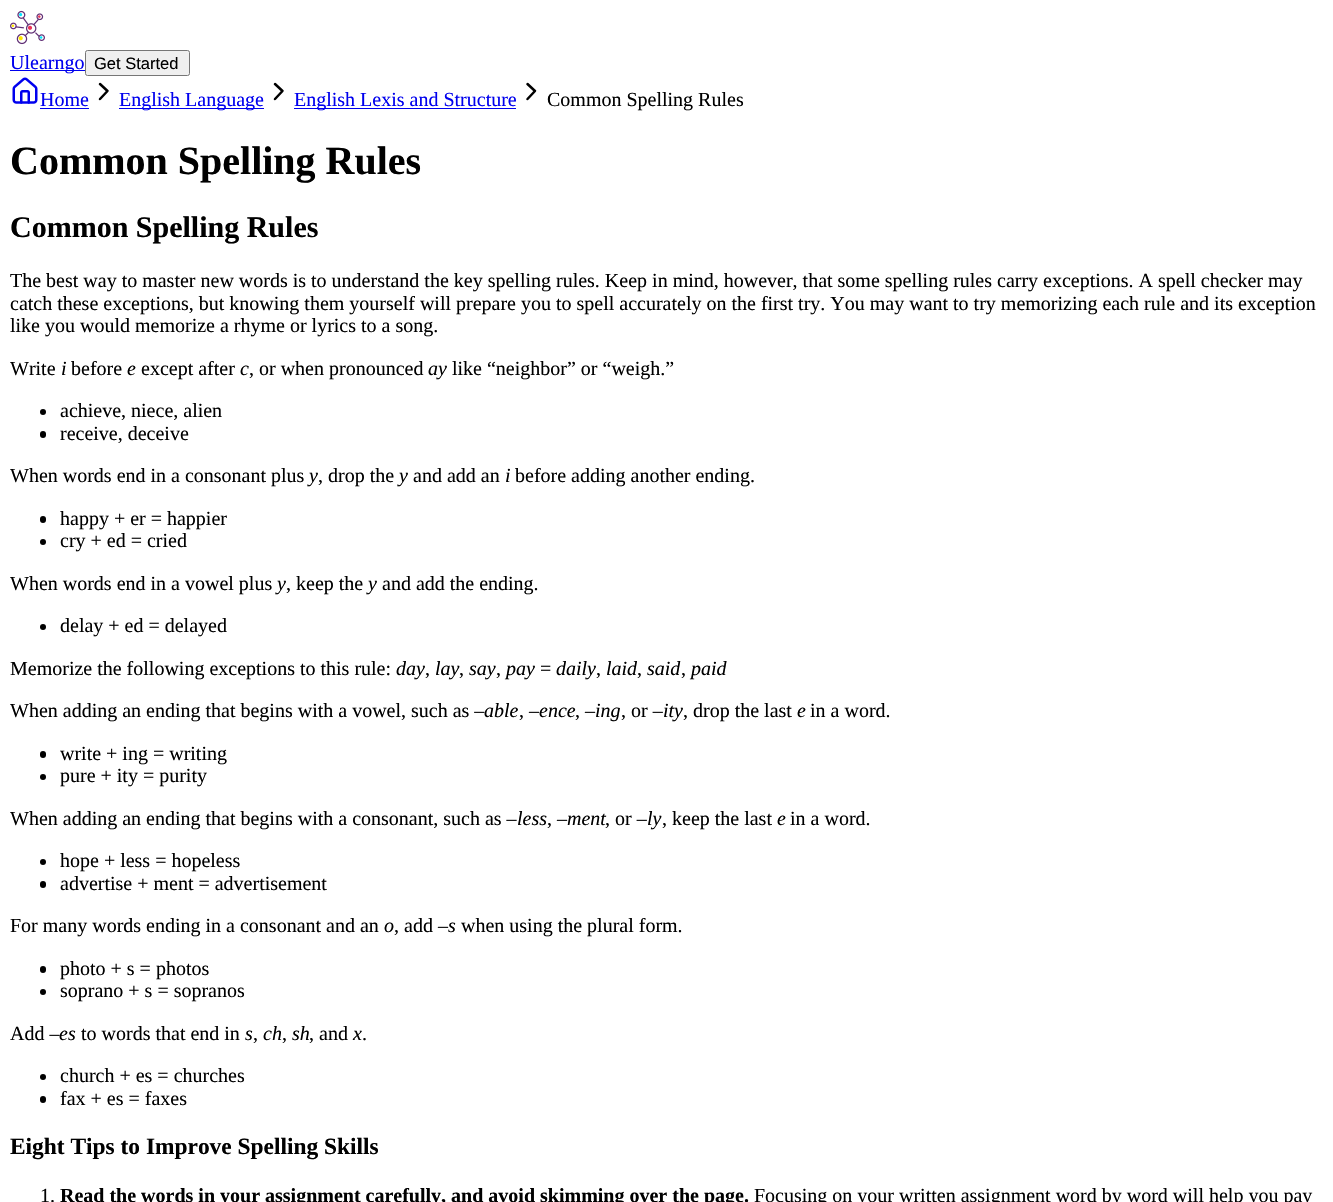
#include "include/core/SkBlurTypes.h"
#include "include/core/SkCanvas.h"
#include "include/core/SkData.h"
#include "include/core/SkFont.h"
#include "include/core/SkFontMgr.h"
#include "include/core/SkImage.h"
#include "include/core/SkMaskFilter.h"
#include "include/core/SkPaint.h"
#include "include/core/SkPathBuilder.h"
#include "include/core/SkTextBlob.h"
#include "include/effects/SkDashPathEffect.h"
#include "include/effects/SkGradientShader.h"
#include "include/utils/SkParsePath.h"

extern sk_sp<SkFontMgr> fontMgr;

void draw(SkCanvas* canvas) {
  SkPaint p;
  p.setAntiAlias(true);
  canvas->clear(SK_ColorWHITE);
  canvas->drawImageRect(SkImages::DeferredFromEncodedData(SkData::MakeFromFileName("images/1.png")), SkRect::MakeLTRB(10, 10, 45, 45), SkSamplingOptions());
  p.setColor(SkColorSetRGB(0, 0, 238));
  canvas->drawRect(SkRect::MakeLTRB(10, 70, 85, 71), p);
  p.setColor(SkColorSetRGB(239, 239, 239));
  canvas->drawRoundRect(SkRect::MakeLTRB(85.5f, 50.5f, 189.5f, 75.5f), 2, 2, p);
  p.setStyle(SkPaint::kStroke_Style);
  p.setStrokeWidth(1);
  p.setColor(SkColorSetRGB(118, 118, 118));
  canvas->drawRoundRect(SkRect::MakeLTRB(85.5f, 50.5f, 189.5f, 75.5f), 2, 2, p);
  canvas->drawImageRect(SkImages::DeferredFromEncodedData(SkData::MakeFromFileName("images/2.png")), SkRect::MakeLTRB(12, 77, 38, 104), SkSamplingOptions());
  p.setStyle(SkPaint::kFill_Style);
  p.setColor(SkColorSetRGB(0, 0, 238));
  canvas->drawRect(SkRect::MakeLTRB(40, 108, 89, 109), p);
  p.setStyle(SkPaint::kStroke_Style);
  p.setStrokeWidth(2.5f);
  p.setStrokeCap(SkPaint::kRound_Cap);
  p.setStrokeJoin(SkPaint::kRound_Join);
  p.setColor(SK_ColorBLACK);
  canvas->drawPath(SkPathBuilder().moveTo(100, 99).lineTo(107.5f, 91).lineTo(100, 84).detach(), p);
  p.setStyle(SkPaint::kFill_Style);
  p.setColor(SkColorSetRGB(0, 0, 238));
  canvas->drawRect(SkRect::MakeLTRB(119, 108, 264, 109), p);
  p.setStyle(SkPaint::kStroke_Style);
  p.setColor(SK_ColorBLACK);
  canvas->drawPath(SkPathBuilder().moveTo(275, 99).lineTo(282.5f, 91).lineTo(275, 84).detach(), p);
  p.setStyle(SkPaint::kFill_Style);
  p.setColor(SkColorSetRGB(0, 0, 238));
  canvas->drawRect(SkRect::MakeLTRB(294, 108, 516, 109), p);
  p.setStyle(SkPaint::kStroke_Style);
  p.setColor(SK_ColorBLACK);
  canvas->drawPath(SkPathBuilder().moveTo(527.5f, 99).lineTo(535, 91).lineTo(527.5f, 84).detach(), p);
  p.setStyle(SkPaint::kFill_Style);
  canvas->drawCircle(43, 412, 3, p);
  canvas->drawRoundRect(SkRect::MakeLTRB(40, 431, 46, 438), 3, 3, p);
  canvas->drawRoundRect(SkRect::MakeLTRB(40, 516, 46, 523), 3, 3, p);
  canvas->drawCircle(43, 542, 3, p);
  canvas->drawCircle(43, 627, 3, p);
  canvas->drawRoundRect(SkRect::MakeLTRB(40, 751, 46, 758), 3, 3, p);
  canvas->drawCircle(43, 777, 3, p);
  canvas->drawCircle(43, 862, 3, p);
  canvas->drawRoundRect(SkRect::MakeLTRB(40, 881, 46, 888), 3, 3, p);
  canvas->drawRoundRect(SkRect::MakeLTRB(40, 966, 46, 973), 3, 3, p);
  canvas->drawCircle(43, 992, 3, p);
  canvas->drawCircle(43, 1077, 3, p);
  canvas->drawRoundRect(SkRect::MakeLTRB(40, 1096, 46, 1103), 3, 3, p);
  SkFont font1(fontMgr->matchFamilyStyle("Liberation Serif", SkFontStyle::Normal()), 20);
  font1.setSubpixel(true);
  p.setColor(SkColorSetRGB(0, 0, 238));
  canvas->drawString("Ulearngo", 10, 69, font1, p);
  SkFont font2(fontMgr->matchFamilyStyle("Liberation Sans", SkFontStyle::Normal()), 16.5f);
  font2.setSubpixel(true);
  p.setColor(SK_ColorBLACK);
  canvas->drawString("Get Started", 94, 69, font2, p);
  p.setColor(SkColorSetRGB(0, 0, 238));
  canvas->drawString("Home", 40, 106, font1, p);
  canvas->drawString("English Language", 119, 106, font1, p);
  canvas->drawString("English Lexis and Structure", 294, 106, font1, p);
  p.setColor(SK_ColorBLACK);
  canvas->drawString("Common Spelling Rules", 547, 106, font1, p);
  SkFont font3(fontMgr->matchFamilyStyle("Liberation Serif", SkFontStyle::Bold()), 40);
  font3.setSubpixel(true);
  canvas->drawString("Common Spelling Rules", 10, 174, font3, p);
  SkFont font4(fontMgr->matchFamilyStyle("Liberation Serif", SkFontStyle::Bold()), 30);
  font4.setSubpixel(true);
  canvas->drawString("Common Spelling Rules", 10, 237, font4, p);
  canvas->drawString("The best way to master new words is to understand the key spelling rules. Keep in mind, however, that some spelling rules carry exceptions. A spell checker may", 10, 287, font1, p);
  canvas->drawString("catch these exceptions, but knowing them yourself will prepare you to spell accurately on the first try. You may want to try memorizing each rule and its exception", 10, 310, font1, p);
  canvas->drawString("like you would memorize a rhyme or lyrics to a song.", 10, 332, font1, p);
  canvas->drawString("Write", 10, 375, font1, p);
  SkFont font5(fontMgr->matchFamilyStyle("Liberation Serif", SkFontStyle::Italic()), 20);
  font5.setSubpixel(true);
  canvas->drawString("i", 61, 375, font5, p);
  canvas->drawString("before", 71, 375, font1, p);
  canvas->drawString("e", 127, 375, font5, p);
  canvas->drawString("except after", 141, 375, font1, p);
  canvas->drawString("c", 240, 375, font5, p);
  canvas->drawString(", or when pronounced", 249, 375, font1, p);
  canvas->drawString("ay", 428, 375, font5, p);
  canvas->drawString("like “neighbor” or “weigh.”", 452, 375, font1, p);
  canvas->drawString("achieve, niece, alien", 60, 417, font1, p);
  canvas->drawString("receive, deceive", 60, 440, font1, p);
  canvas->drawString("When words end in a consonant plus", 10, 482, font1, p);
  canvas->drawString("y", 309, 482, font5, p);
  canvas->drawString(", drop the", 318, 482, font1, p);
  canvas->drawString("y", 399, 482, font5, p);
  canvas->drawString("and add an", 413, 482, font1, p);
  canvas->drawString("i", 505, 482, font5, p);
  canvas->drawString("before adding another ending.", 515, 482, font1, p);
  canvas->drawString("happy + er = happier", 60, 525, font1, p);
  canvas->drawString("cry + ed = cried", 60, 547, font1, p);
  canvas->drawString("When words end in a vowel plus", 10, 590, font1, p);
  canvas->drawString("y", 277, 590, font5, p);
  canvas->drawString(", keep the", 286, 590, font1, p);
  canvas->drawString("y", 368, 590, font5, p);
  canvas->drawString("and add the ending.", 382, 590, font1, p);
  canvas->drawString("delay + ed = delayed", 60, 632, font1, p);
  canvas->drawString("Memorize the following exceptions to this rule:", 10, 675, font1, p);
  canvas->drawString("day", 396, 675, font5, p);
  canvas->drawString("lay", 435, 675, font5, p);
  canvas->drawString("say", 469, 675, font5, p);
  canvas->drawString("pay", 506, 675, font5, p);
  canvas->drawString("=", 540, 675, font1, p);
  canvas->drawString("daily", 556, 675, font5, p);
  canvas->drawString("laid", 606, 675, font5, p);
  canvas->drawString("said", 647, 675, font5, p);
  canvas->drawString("paid", 691, 675, font5, p);
  canvas->drawString(",", 425, 675, font1, p);
  canvas->drawString(",", 459, 675, font1, p);
  canvas->drawString(",", 496, 675, font1, p);
  canvas->drawString(",", 596, 675, font1, p);
  canvas->drawString(",", 637, 675, font1, p);
  canvas->drawString(",", 681, 675, font1, p);
  canvas->drawString("When adding an ending that begins with a vowel, such as –", 10, 717, font1, p);
  canvas->drawString("able", 484, 717, font5, p);
  canvas->drawString(", –", 519, 717, font1, p);
  canvas->drawString("ence", 539, 717, font5, p);
  canvas->drawString(", –", 575, 717, font1, p);
  canvas->drawString("ing", 595, 717, font5, p);
  canvas->drawString(", or –", 621, 717, font1, p);
  canvas->drawString("ity", 663, 717, font5, p);
  canvas->drawString(", drop the last", 683, 717, font1, p);
  canvas->drawString("e", 797, 717, font5, p);
  canvas->drawString("in a word.", 810, 717, font1, p);
  canvas->drawString("write + ing = writing", 60, 760, font1, p);
  canvas->drawString("pure + ity = purity", 60, 782, font1, p);
  canvas->drawString("When adding an ending that begins with a consonant, such as –", 10, 825, font1, p);
  canvas->drawString("less", 517, 825, font5, p);
  canvas->drawString(", –", 547, 825, font1, p);
  canvas->drawString("ment", 567, 825, font5, p);
  canvas->drawString(", or –", 605, 825, font1, p);
  canvas->drawString("ly", 647, 825, font5, p);
  canvas->drawString(", keep the last", 662, 825, font1, p);
  canvas->drawString("e", 777, 825, font5, p);
  canvas->drawString("in a word.", 790, 825, font1, p);
  canvas->drawString("hope + less = hopeless", 60, 867, font1, p);
  canvas->drawString("advertise + ment = advertisement", 60, 890, font1, p);
  canvas->drawString("For many words ending in a consonant and an", 10, 932, font1, p);
  canvas->drawString("o", 384, 932, font5, p);
  canvas->drawString(", add –", 394, 932, font1, p);
  canvas->drawString("s", 448, 932, font5, p);
  canvas->drawString("when using the plural form.", 461, 932, font1, p);
  canvas->drawString("photo + s = photos", 60, 975, font1, p);
  canvas->drawString("soprano + s = sopranos", 60, 997, font1, p);
  canvas->drawString("Add –", 10, 1040, font1, p);
  canvas->drawString("es", 59, 1040, font5, p);
  canvas->drawString("to words that end in", 81, 1040, font1, p);
  canvas->drawString("s", 245, 1040, font5, p);
  canvas->drawString(",", 253, 1040, font1, p);
  canvas->drawString("ch", 263, 1040, font5, p);
  canvas->drawString(",", 282, 1040, font1, p);
  canvas->drawString("sh", 292, 1040, font5, p);
  canvas->drawString(", and", 309, 1040, font1, p);
  canvas->drawString("x", 353, 1040, font5, p);
  canvas->drawString(".", 362, 1040, font1, p);
  canvas->drawString("church + es = churches", 60, 1082, font1, p);
  canvas->drawString("fax + es = faxes", 60, 1105, font1, p);
  SkFont font6(fontMgr->matchFamilyStyle("Liberation Serif", SkFontStyle::Bold()), 23.4f);
  font6.setSubpixel(true);
  canvas->drawString("Eight Tips to Improve Spelling Skills", 10, 1154, font6, p);
  canvas->drawString("1.", 40, 1202, font1, p);
  SkFont font7(fontMgr->matchFamilyStyle("Liberation Serif", SkFontStyle::Bold()), 20);
  font7.setSubpixel(true);
  canvas->drawString("Read the words in your assignment carefully, and avoid skimming over the page.", 60, 1202, font7, p);
  canvas->drawString("Focusing on your written assignment word by word will help you pay", 754, 1202, font1, p);
}
